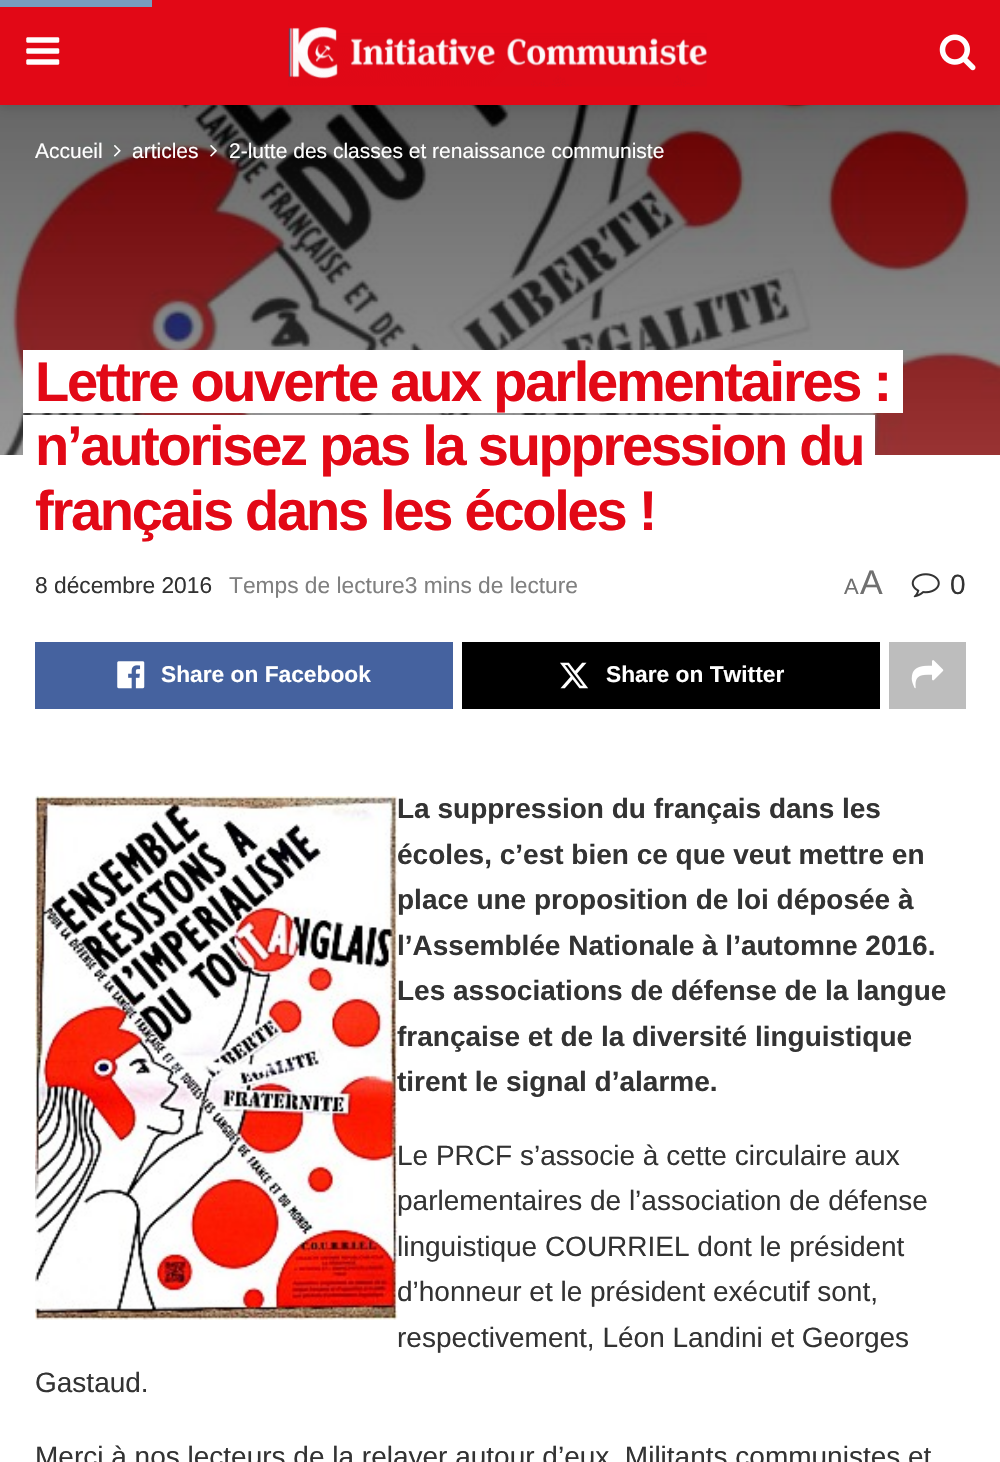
#include "include/core/SkBlurTypes.h"
#include "include/core/SkCanvas.h"
#include "include/core/SkData.h"
#include "include/core/SkFont.h"
#include "include/core/SkFontMgr.h"
#include "include/core/SkImage.h"
#include "include/core/SkMaskFilter.h"
#include "include/core/SkPaint.h"
#include "include/core/SkPathBuilder.h"
#include "include/core/SkTextBlob.h"
#include "include/effects/SkDashPathEffect.h"
#include "include/effects/SkGradientShader.h"
#include "include/utils/SkParsePath.h"

extern sk_sp<SkFontMgr> fontMgr;

void draw(SkCanvas* canvas) {
  SkPaint p;
  p.setAntiAlias(true);
  auto spacedText = [&](const char* s, float x, float y, const SkFont& font, const SkPaint& ink, float letter, float word) {
    std::vector<SkGlyphID> glyphs(font.countText(s, strlen(s), SkTextEncoding::kUTF8));
    std::vector<float> xs(glyphs.size());
    font.textToGlyphs(s, strlen(s), SkTextEncoding::kUTF8, glyphs);
    font.getXPos(glyphs, xs, x);
    float extra = 0;
    for (size_t i = 0; i < glyphs.size(); i++) {
      xs[i] += extra;
      extra += letter + word * (glyphs[i] == font.unicharToGlyph(' '));
    }
    canvas->drawTextBlob(SkTextBlob::MakeFromPosHGlyphs(glyphs, xs, y, font), 0, 0, ink);
  };
  canvas->clear(SK_ColorWHITE);
  {
    const SkColor colors[] = {SK_ColorBLACK, SkColorSetRGB(84, 84, 84)};
    const float stops[] = {0, 1};
    const SkPoint ends[] = {{501, 105}, {501, 455}};
    p.setShader(SkGradientShader::MakeLinear(ends, colors, stops, 2, SkTileMode::kClamp));
    p.setAlpha(255);
  }
  canvas->drawRect(SkRect::MakeLTRB(0, 105, 1000, 455), p);
  canvas->drawImageRect(SkImages::DeferredFromEncodedData(SkData::MakeFromFileName("images/4.png")), SkRect::MakeLTRB(0, 105, 1000, 455), SkSamplingOptions());
  p.setShader(nullptr);
  p.setColor(SkColorSetARGB(26, 0, 0, 0));
  p.setMaskFilter(SkMaskFilter::MakeBlur(kNormal_SkBlurStyle, 5));
  canvas->drawRect(SkRect::MakeLTRB(0, 4, 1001, 109), p);
  p.setMaskFilter(nullptr);
  p.setColor(SkColorSetRGB(226, 8, 22));
  canvas->drawRect(SkRect::MakeLTRB(0, 0, 1000, 105), p);
  p.setColor(SkColorSetRGB(120, 157, 191));
  canvas->drawRect(SkRect::MakeLTRB(0, 0, 152, 7), p);
  canvas->drawImageRect(SkImages::DeferredFromEncodedData(SkData::MakeFromFileName("images/1.png")), SkRect::MakeLTRB(26, 37, 60, 65), SkSamplingOptions());
  canvas->drawImageRect(SkImages::DeferredFromEncodedData(SkData::MakeFromFileName("images/2.png")), SkRect::MakeLTRB(288, 27, 707, 87), SkSamplingOptions());
  canvas->drawImageRect(SkImages::DeferredFromEncodedData(SkData::MakeFromFileName("images/3.png")), SkRect::MakeLTRB(939, 34, 976, 71), SkSamplingOptions());
  canvas->drawImageRect(SkImages::DeferredFromEncodedData(SkData::MakeFromFileName("images/5.png")), SkRect::MakeLTRB(114, 145, 121, 157), SkSamplingOptions());
  canvas->drawImageRect(SkImages::DeferredFromEncodedData(SkData::MakeFromFileName("images/6.png")), SkRect::MakeLTRB(210, 145, 217, 157), SkSamplingOptions());
  p.setColor(SK_ColorWHITE);
  canvas->drawRect(SkRect::MakeLTRB(23, 350, 35, 413), p);
  canvas->drawRect(SkRect::MakeLTRB(35, 350, 903, 413), p);
  canvas->drawPath(SkPathBuilder().moveTo(23, 415).lineTo(23, 478).lineTo(851, 478).lineTo(35, 478).lineTo(35, 415).close().detach(), p);
  canvas->drawPath(SkPathBuilder().moveTo(47, 478).lineTo(875, 478).lineTo(875, 415).lineTo(863, 415).lineTo(863, 478).close().detach(), p);
  canvas->drawRect(SkRect::MakeLTRB(35, 415, 863, 455), p);
  canvas->drawImageRect(SkImages::DeferredFromEncodedData(SkData::MakeFromFileName("images/7.png")), SkRect::MakeLTRB(911, 573, 940, 598), SkSamplingOptions());
  p.setColor(SkColorSetRGB(69, 98, 159));
  canvas->drawRect(SkRect::MakeLTRB(35, 642, 453, 709), p);
  canvas->drawImageRect(SkImages::DeferredFromEncodedData(SkData::MakeFromFileName("images/8.png")), SkRect::MakeLTRB(117, 661, 145, 689), SkSamplingOptions());
  p.setColor(SK_ColorBLACK);
  canvas->drawRect(SkRect::MakeLTRB(462, 642, 880, 709), p);
  canvas->drawImageRect(SkImages::DeferredFromEncodedData(SkData::MakeFromFileName("images/9.png")), SkRect::MakeLTRB(560, 662, 589, 689), SkSamplingOptions());
  p.setColor(SkColorSetRGB(189, 189, 189));
  canvas->drawRect(SkRect::MakeLTRB(889, 642, 966, 709), p);
  canvas->drawImageRect(SkImages::DeferredFromEncodedData(SkData::MakeFromFileName("images/10.png")), SkRect::MakeLTRB(911, 660, 944, 689), SkSamplingOptions());
  canvas->drawImageRect(SkImages::DeferredFromEncodedData(SkData::MakeFromFileName("images/11.png")), SkRect::MakeLTRB(35, 796, 398, 1320), SkSamplingOptions());
  SkFont font1(fontMgr->matchFamilyStyle("Liberation Sans", SkFontStyle::Normal()), 21);
  font1.setSubpixel(true);
  p.setColor(SK_ColorWHITE);
  canvas->drawString("Accueil", 35, 158, font1, p);
  canvas->drawString("articles", 132, 158, font1, p);
  canvas->drawString("2-lutte des classes et renaissance communiste", 229, 158, font1, p);
  SkFont font2(fontMgr->matchFamilyStyle("Liberation Sans", SkFontStyle::Bold()), 56);
  font2.setSubpixel(true);
  p.setColor(SkColorSetRGB(226, 8, 22));
  spacedText("Lettre ouverte aux parlementaires :", 35, 401, font2, p, -2.25f, 0);
  spacedText("n’autorisez pas la suppression du", 35, 465, font2, p, -2.25f, 0);
  spacedText("français dans les écoles !", 35, 530, font2, p, -2.25f, 0);
  SkFont font3(fontMgr->matchFamilyStyle("Liberation Sans", SkFontStyle::Normal()), 22.75f);
  font3.setSubpixel(true);
  p.setColor(SkColorSetRGB(51, 51, 51));
  canvas->drawString("8 décembre 2016", 35, 593, font3, p);
  p.setColor(SkColorSetRGB(128, 128, 128));
  canvas->drawString("Temps de lecture3 mins de lecture", 229, 593, font3, p);
  SkFont font4(fontMgr->matchFamilyStyle("Liberation Sans", SkFontStyle::Normal()), 22);
  font4.setSubpixel(true);
  p.setColor(SkColorSetRGB(112, 112, 112));
  canvas->drawString("A", 844, 594, font4, p);
  SkFont font5(fontMgr->matchFamilyStyle("Liberation Sans", SkFontStyle::Normal()), 34);
  font5.setSubpixel(true);
  canvas->drawString("A", 860, 594, font5, p);
  SkFont font6(fontMgr->matchFamilyStyle("Liberation Sans", SkFontStyle::Normal()), 28);
  font6.setSubpixel(true);
  p.setColor(SkColorSetRGB(51, 51, 51));
  canvas->drawString("0", 950, 594, font6, p);
  SkFont font7(fontMgr->matchFamilyStyle("Liberation Sans", SkFontStyle::Bold()), 22.75f);
  font7.setSubpixel(true);
  p.setColor(SK_ColorWHITE);
  canvas->drawString("Share on Facebook", 161, 682, font7, p);
  canvas->drawString("Share on Twitter", 606, 682, font7, p);
  SkFont font8(fontMgr->matchFamilyStyle("Liberation Sans", SkFontStyle::Bold()), 28);
  font8.setSubpixel(true);
  p.setColor(SkColorSetRGB(51, 51, 51));
  canvas->drawString("La suppression du français dans les", 397, 818, font8, p);
  canvas->drawString("écoles, c’est bien ce que veut mettre en", 397, 864, font8, p);
  canvas->drawString("place une proposition de loi déposée à", 397, 909, font8, p);
  canvas->drawString("l’Assemblée Nationale à l’automne 2016.", 397, 955, font8, p);
  canvas->drawString("Les associations de défense de la langue", 397, 1000, font8, p);
  canvas->drawString("française et de la diversité linguistique", 397, 1046, font8, p);
  canvas->drawString("tirent le signal d’alarme.", 397, 1091, font8, p);
  canvas->drawString("Le PRCF s’associe à cette circulaire aux", 397, 1165, font6, p);
  canvas->drawString("parlementaires de l’association de défense", 397, 1210, font6, p);
  canvas->drawString("linguistique COURRIEL dont le président", 397, 1256, font6, p);
  canvas->drawString("d’honneur et le président exécutif sont,", 397, 1301, font6, p);
  canvas->drawString("respectivement, Léon Landini et Georges", 397, 1347, font6, p);
  canvas->drawString("Gastaud.", 35, 1392, font6, p);
  canvas->drawString("Merci à nos lecteurs de la relayer autour d’eux. Militants communistes et", 35, 1466, font6, p);
}
